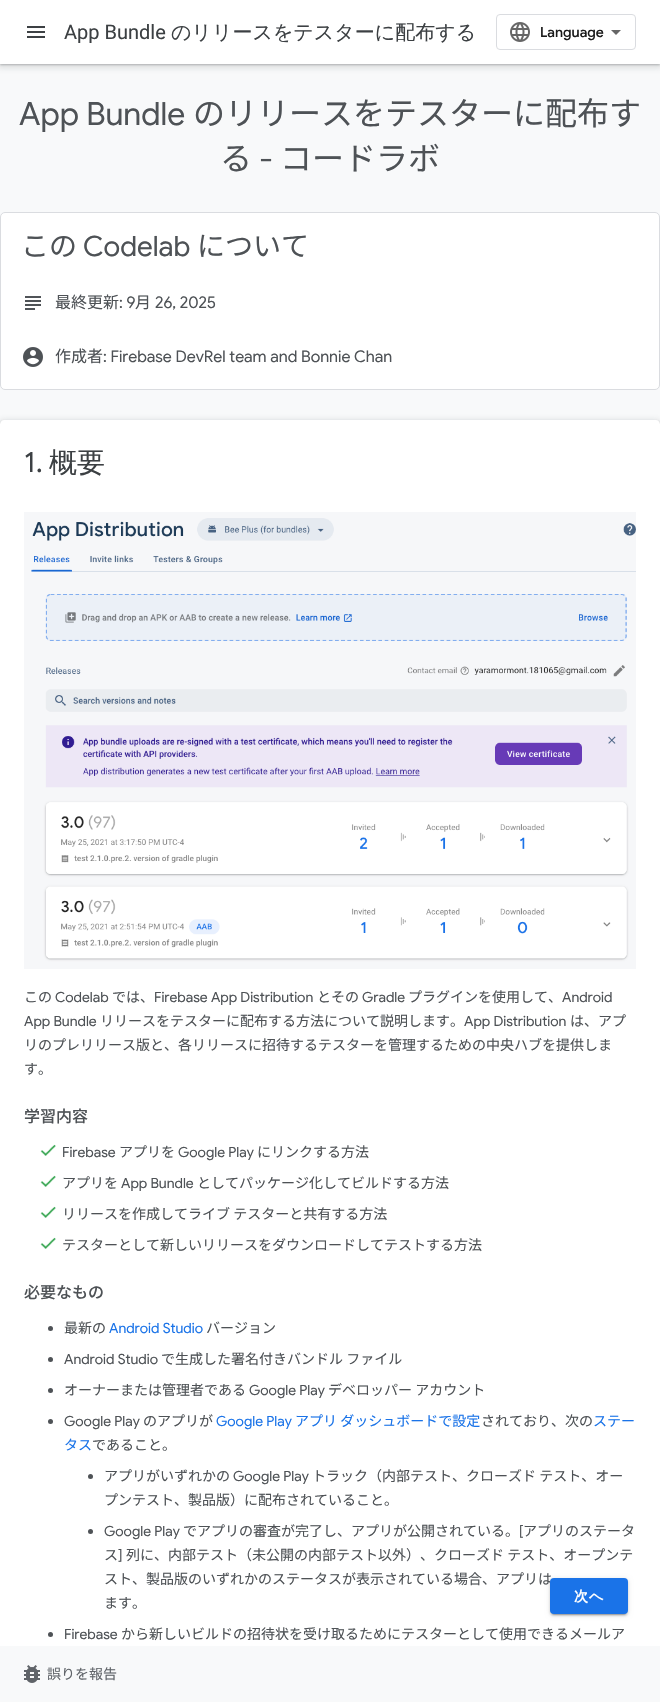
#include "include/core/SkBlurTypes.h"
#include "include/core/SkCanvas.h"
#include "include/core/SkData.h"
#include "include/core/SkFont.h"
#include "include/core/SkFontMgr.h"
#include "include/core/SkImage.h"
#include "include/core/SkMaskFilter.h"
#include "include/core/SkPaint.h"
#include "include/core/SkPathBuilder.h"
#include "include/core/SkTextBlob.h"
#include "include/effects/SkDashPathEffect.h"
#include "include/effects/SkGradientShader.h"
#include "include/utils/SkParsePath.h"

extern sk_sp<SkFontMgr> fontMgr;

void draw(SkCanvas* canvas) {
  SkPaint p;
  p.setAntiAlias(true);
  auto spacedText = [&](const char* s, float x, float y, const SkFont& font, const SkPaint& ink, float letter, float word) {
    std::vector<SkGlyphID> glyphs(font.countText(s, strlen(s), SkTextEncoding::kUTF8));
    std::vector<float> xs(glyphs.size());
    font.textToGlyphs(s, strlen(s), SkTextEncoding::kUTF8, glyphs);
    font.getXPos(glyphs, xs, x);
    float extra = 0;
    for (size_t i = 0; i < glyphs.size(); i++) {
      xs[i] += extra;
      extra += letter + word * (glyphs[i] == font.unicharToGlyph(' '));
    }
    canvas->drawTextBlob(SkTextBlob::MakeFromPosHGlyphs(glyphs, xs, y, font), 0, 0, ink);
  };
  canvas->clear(SkColorSetRGB(248, 249, 250));
  p.setColor(SkColorSetARGB(38, 60, 64, 67));
  p.setMaskFilter(SkMaskFilter::MakeBlur(kNormal_SkBlurStyle, 3));
  canvas->drawRect(SkRect::MakeLTRB(-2, 0, 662, 68), p);
  p.setMaskFilter(nullptr);
  p.setColor(SkColorSetARGB(77, 60, 64, 67));
  p.setMaskFilter(SkMaskFilter::MakeBlur(kNormal_SkBlurStyle, 1));
  canvas->drawRect(SkRect::MakeLTRB(0, 1, 660, 65), p);
  p.setMaskFilter(nullptr);
  p.setColor(SK_ColorWHITE);
  canvas->drawRect(SkRect::MakeLTRB(0, 0, 660, 64), p);
  canvas->drawImageRect(SkImages::DeferredFromEncodedData(SkData::MakeFromFileName("images/1.png")), SkRect::MakeLTRB(27, 26, 45, 38), SkSamplingOptions());
  p.setStyle(SkPaint::kStroke_Style);
  p.setStrokeWidth(1);
  p.setColor(SkColorSetRGB(218, 220, 224));
  canvas->drawRoundRect(SkRect::MakeLTRB(496.5f, 14.5f, 635.5f, 49.5f), 3.5f, 3.5f, p);
  canvas->drawImageRect(SkImages::DeferredFromEncodedData(SkData::MakeFromFileName("images/2.png")), SkRect::MakeLTRB(510, 22, 530, 42), SkSamplingOptions());
  p.setStyle(SkPaint::kFill_Style);
  p.setColor(SkColorSetRGB(102, 102, 102));
  canvas->drawPath(SkPathBuilder().moveTo(616, 35).lineTo(611, 30).lineTo(621, 30).close().detach(), p);
  p.setColor(SK_ColorWHITE);
  canvas->drawRoundRect(SkRect::MakeLTRB(0.5f, 212.5f, 659.5f, 389.5f), 4.5f, 4.5f, p);
  p.setStyle(SkPaint::kStroke_Style);
  p.setColor(SkColorSetRGB(218, 220, 224));
  canvas->drawRoundRect(SkRect::MakeLTRB(0.5f, 212.5f, 659.5f, 389.5f), 4.5f, 4.5f, p);
  canvas->drawImageRect(SkImages::DeferredFromEncodedData(SkData::MakeFromFileName("images/3.png")), SkRect::MakeLTRB(25, 296, 41, 310), SkSamplingOptions());
  canvas->drawImageRect(SkImages::DeferredFromEncodedData(SkData::MakeFromFileName("images/4.png")), SkRect::MakeLTRB(23, 347, 43, 367), SkSamplingOptions());
  canvas->drawImageRect(SkImages::DeferredFromEncodedData(SkData::MakeFromFileName("images/7.png")), SkRect::MakeLTRB(24, 1665, 40, 1683), SkSamplingOptions());
  canvas->save();
  canvas->clipRect(SkRect::MakeLTRB(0, 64, 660, 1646));
  p.setStyle(SkPaint::kFill_Style);
  p.setColor(SkColorSetARGB(38, 60, 64, 67));
  p.setMaskFilter(SkMaskFilter::MakeBlur(kNormal_SkBlurStyle, 3));
  canvas->drawRoundRect(SkRect::MakeLTRB(-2, 420, 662, 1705), 6, 6, p);
  p.setMaskFilter(nullptr);
  p.setColor(SkColorSetARGB(77, 60, 64, 67));
  p.setMaskFilter(SkMaskFilter::MakeBlur(kNormal_SkBlurStyle, 1));
  canvas->drawRoundRect(SkRect::MakeLTRB(0, 421, 660, 1702), 4, 4, p);
  p.setMaskFilter(nullptr);
  canvas->restore();
  p.setColor(SK_ColorWHITE);
  canvas->drawPath(SkPathBuilder().moveTo(4, 420).lineTo(656, 420).cubicTo(658, 420, 660, 422, 660, 424).lineTo(660, 1646).lineTo(0, 1646).lineTo(0, 424).cubicTo(0, 422, 2, 420, 4, 420).close().detach(), p);
  canvas->drawImageRect(SkImages::DeferredFromEncodedData(SkData::MakeFromFileName("images/5.png")), SkRect::MakeLTRB(24, 512, 636, 969), SkSamplingOptions());
  canvas->drawImageRect(SkImages::DeferredFromEncodedData(SkData::MakeFromFileName("images/6.png")), SkRect::MakeLTRB(40, 1144, 56, 1156), SkSamplingOptions());
  canvas->drawImageRect(SkImages::DeferredFromEncodedData(SkData::MakeFromFileName("images/6.png")), SkRect::MakeLTRB(40, 1175, 56, 1187), SkSamplingOptions());
  canvas->drawImageRect(SkImages::DeferredFromEncodedData(SkData::MakeFromFileName("images/6.png")), SkRect::MakeLTRB(40, 1206, 56, 1218), SkSamplingOptions());
  canvas->drawImageRect(SkImages::DeferredFromEncodedData(SkData::MakeFromFileName("images/6.png")), SkRect::MakeLTRB(40, 1237, 56, 1249), SkSamplingOptions());
  p.setColor(SkColorSetRGB(78, 82, 86));
  canvas->drawCircle(50.5f, 1328.5f, 2.5f, p);
  canvas->drawCircle(50.5f, 1359.5f, 2.5f, p);
  canvas->drawCircle(50.5f, 1390.5f, 2.5f, p);
  canvas->drawCircle(50.5f, 1421.5f, 2.5f, p);
  canvas->drawCircle(90.5f, 1476.5f, 2.5f, p);
  canvas->drawCircle(90.5f, 1531.5f, 2.5f, p);
  canvas->drawCircle(50.5f, 1634.5f, 2.5f, p);
  p.setColor(SkColorSetARGB(51, 0, 0, 0));
  p.setMaskFilter(SkMaskFilter::MakeBlur(kNormal_SkBlurStyle, 0.5f));
  canvas->drawRoundRect(SkRect::MakeLTRB(552, 1583, 626, 1615), 2, 2, p);
  p.setMaskFilter(nullptr);
  p.setColor(SkColorSetARGB(31, 0, 0, 0));
  p.setMaskFilter(SkMaskFilter::MakeBlur(kNormal_SkBlurStyle, 2.5f));
  canvas->drawRoundRect(SkRect::MakeLTRB(550, 1579, 628, 1615), 4, 4, p);
  p.setMaskFilter(nullptr);
  p.setColor(SkColorSetARGB(36, 0, 0, 0));
  p.setMaskFilter(SkMaskFilter::MakeBlur(kNormal_SkBlurStyle, 1));
  canvas->drawRoundRect(SkRect::MakeLTRB(550, 1580, 628, 1616), 4, 4, p);
  p.setMaskFilter(nullptr);
  SkFont font1(fontMgr->matchFamilyStyle("Roboto", SkFontStyle::Normal()), 20);
  font1.setSubpixel(true);
  p.setColor(SkColorSetRGB(60, 64, 67));
  canvas->drawString("App Bundle", 64, 39, font1, p);
  SkFont font2(fontMgr->matchFamilyStyle("WenQuanYi Zen Hei", SkFontStyle(500, SkFontStyle::kNormal_Width, SkFontStyle::kUpright_Slant)), 20);
  font2.setSubpixel(true);
  canvas->drawString("のリリースをテスターに配布する", 171, 39, font2, p);
  SkFont font3(fontMgr->matchFamilyStyle("Google Sans", SkFontStyle(500, SkFontStyle::kNormal_Width, SkFontStyle::kUpright_Slant)), 14);
  font3.setSubpixel(true);
  p.setColor(SkColorSetRGB(26, 26, 26));
  canvas->drawString("Language", 540, 37, font3, p);
  SkFont font4(fontMgr->matchFamilyStyle("Google Sans", SkFontStyle::Normal()), 32);
  font4.setSubpixel(true);
  p.setColor(SkColorSetRGB(78, 82, 86));
  canvas->drawString("App Bundle", 19, 125, font4, p);
  SkFont font5(fontMgr->matchFamilyStyle("Noto Sans JP", SkFontStyle::Normal()), 32);
  font5.setSubpixel(true);
  canvas->drawString("のリリースをテスターに配布す", 193, 125, font5, p);
  canvas->drawString("る", 220, 170, font5, p);
  canvas->drawString("-", 259, 170, font4, p);
  canvas->drawString("コードラボ", 280, 170, font5, p);
  SkFont font6(fontMgr->matchFamilyStyle("Noto Sans JP", SkFontStyle::Normal()), 28);
  font6.setSubpixel(true);
  canvas->drawString("この", 21, 256, font6, p);
  SkFont font7(fontMgr->matchFamilyStyle("Google Sans", SkFontStyle::Normal()), 28);
  font7.setSubpixel(true);
  canvas->drawString("Codelab", 83, 256, font7, p);
  canvas->drawString("について", 197, 256, font6, p);
  SkFont font8(fontMgr->matchFamilyStyle("Noto Sans JP", SkFontStyle::Normal()), 16);
  font8.setSubpixel(true);
  canvas->drawString("最終更新", 55, 308, font8, p);
  SkFont font9(fontMgr->matchFamilyStyle("Google Sans", SkFontStyle::Normal()), 16);
  font9.setSubpixel(true);
  canvas->drawString(": 9", 119, 308, font9, p);
  canvas->drawString("月", 135, 308, font8, p);
  canvas->drawString("26, 2025", 155, 308, font9, p);
  canvas->drawString("作成者", 55, 362, font8, p);
  canvas->drawString(": Firebase DevRel team and Bonnie Chan", 103, 362, font9, p);
  p.setColor(SkColorSetRGB(60, 64, 67));
  canvas->drawString("1.", 24, 472, font7, p);
  SkFont font10(fontMgr->matchFamilyStyle("WenQuanYi Zen Hei", SkFontStyle(500, SkFontStyle::kNormal_Width, SkFontStyle::kUpright_Slant)), 28);
  font10.setSubpixel(true);
  canvas->drawString("概要", 49, 472, font10, p);
  SkFont font11(fontMgr->matchFamilyStyle("Noto Sans JP", SkFontStyle::Normal()), 14);
  font11.setSubpixel(true);
  p.setColor(SkColorSetRGB(78, 82, 86));
  canvas->drawString("この", 24, 1002, font11, p);
  SkFont font12(fontMgr->matchFamilyStyle("Google Sans", SkFontStyle::Normal()), 14);
  font12.setSubpixel(true);
  canvas->drawString("Codelab", 55, 1002, font12, p);
  canvas->drawString("では、", 112, 1002, font11, p);
  canvas->drawString("Firebase App Distribution", 154, 1002, font12, p);
  canvas->drawString("とその", 317, 1002, font11, p);
  canvas->drawString("Gradle", 362, 1002, font12, p);
  canvas->drawString("プラグインを使用して、", 408, 1002, font11, p);
  canvas->drawString("Android", 562, 1002, font12, p);
  canvas->drawString("App Bundle", 24, 1026, font12, p);
  canvas->drawString("リリースをテスターに配布する方法について説明します。", 100, 1026, font11, p);
  canvas->drawString("App Distribution", 464, 1026, font12, p);
  canvas->drawString("は、アプ", 570, 1026, font11, p);
  canvas->drawString("リのプレリリース版と、各リリースに招待するテスターを管理するための中央ハブを提供しま", 24, 1050, font11, p);
  canvas->drawString("す。", 24, 1074, font11, p);
  SkFont font13(fontMgr->matchFamilyStyle("Noto Sans JP", SkFontStyle(500, SkFontStyle::kNormal_Width, SkFontStyle::kUpright_Slant)), 16);
  font13.setSubpixel(true);
  canvas->drawString("学習内容", 24, 1122, font13, p);
  canvas->drawString("Firebase", 62, 1157, font12, p);
  canvas->drawString("アプリを", 119, 1157, font11, p);
  canvas->drawString("Google Play", 178, 1157, font12, p);
  canvas->drawString("にリンクする方法", 257, 1157, font11, p);
  canvas->drawString("アプリを", 62, 1188, font11, p);
  canvas->drawString("App Bundle", 121, 1188, font12, p);
  canvas->drawString("としてパッケージ化してビルドする方法", 197, 1188, font11, p);
  canvas->drawString("リリースを作成してライブ テスターと共有する方法", 62, 1219, font11, p);
  canvas->drawString("テスターとして新しいリリースをダウンロードしてテストする方法", 62, 1250, font11, p);
  canvas->drawString("必要なもの", 24, 1298, font13, p);
  canvas->drawString("最新の", 64, 1333, font11, p);
  p.setColor(SkColorSetRGB(26, 115, 232));
  canvas->drawString("Android Studio", 109, 1333, font12, p);
  p.setColor(SkColorSetRGB(78, 82, 86));
  canvas->drawString("バージョン", 206, 1333, font11, p);
  canvas->drawString("Android Studio", 64, 1364, font12, p);
  canvas->drawString("で生成した署名付きバンドル ファイル", 161, 1364, font11, p);
  canvas->drawString("オーナーまたは管理者である", 64, 1395, font11, p);
  canvas->drawString("Google Play", 249, 1395, font12, p);
  canvas->drawString("デベロッパー アカウント", 328, 1395, font11, p);
  canvas->drawString("Google Play", 64, 1426, font12, p);
  canvas->drawString("のアプリが", 143, 1426, font11, p);
  p.setColor(SkColorSetRGB(26, 115, 232));
  canvas->drawString("Google Play", 216, 1426, font12, p);
  canvas->drawString("アプリ ダッシュボードで設定", 295, 1426, font11, p);
  p.setColor(SkColorSetRGB(78, 82, 86));
  canvas->drawString("されており、次の", 481, 1426, font11, p);
  p.setColor(SkColorSetRGB(26, 115, 232));
  canvas->drawString("ステー", 593, 1426, font11, p);
  canvas->drawString("タス", 64, 1450, font11, p);
  p.setColor(SkColorSetRGB(78, 82, 86));
  canvas->drawString("であること。", 92, 1450, font11, p);
  canvas->drawString("アプリがいずれかの", 104, 1481, font11, p);
  canvas->drawString("Google Play", 233, 1481, font12, p);
  canvas->drawString("トラック（内部テスト、クローズド テスト、オー", 312, 1481, font11, p);
  canvas->drawString("プンテスト、製品版）に配布されていること。", 104, 1505, font11, p);
  canvas->drawString("Google Play", 104, 1536, font12, p);
  canvas->drawString("でアプリの審査が完了し、アプリが公開されている。", 183, 1536, font11, p);
  canvas->drawString("[", 519, 1536, font12, p);
  canvas->drawString("アプリのステータ", 523, 1536, font11, p);
  canvas->drawString("ス", 104, 1560, font11, p);
  canvas->drawString("]", 118, 1560, font12, p);
  canvas->drawString("列に、内部テスト（未公開の内部テスト以外）、クローズド テスト、オープンテ", 126, 1560, font11, p);
  canvas->drawString("スト、製品版のいずれかのステータスが表示されている場合、アプリは", 104, 1584, font11, p);
  canvas->drawString("ます。", 104, 1608, font11, p);
  canvas->drawString("Firebase", 64, 1639, font12, p);
  canvas->drawString("から新しいビルドの招待状を受け取るためにテスターとして使用できるメールア", 121, 1639, font11, p);
  p.setColor(SkColorSetRGB(26, 115, 232));
  canvas->drawRoundRect(SkRect::MakeLTRB(550, 1578, 628, 1614), 4, 4, p);
  SkFont font14(fontMgr->matchFamilyStyle("WenQuanYi Zen Hei", SkFontStyle::Bold()), 14);
  font14.setSubpixel(true);
  p.setColor(SK_ColorWHITE);
  spacedText("次へ", 574, 1601, font14, p, 1, 0);
  p.setColor(SkColorSetRGB(95, 99, 104));
  canvas->drawString("誤りを報告", 47, 1679, font11, p);
}
